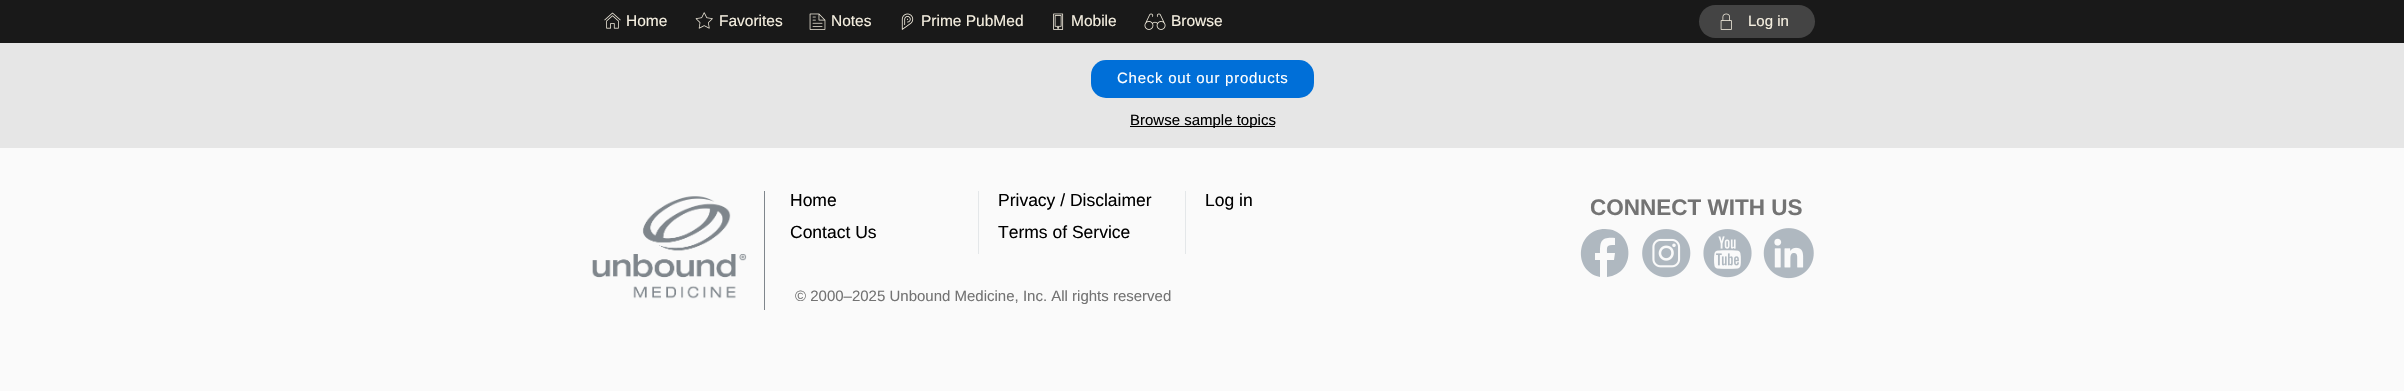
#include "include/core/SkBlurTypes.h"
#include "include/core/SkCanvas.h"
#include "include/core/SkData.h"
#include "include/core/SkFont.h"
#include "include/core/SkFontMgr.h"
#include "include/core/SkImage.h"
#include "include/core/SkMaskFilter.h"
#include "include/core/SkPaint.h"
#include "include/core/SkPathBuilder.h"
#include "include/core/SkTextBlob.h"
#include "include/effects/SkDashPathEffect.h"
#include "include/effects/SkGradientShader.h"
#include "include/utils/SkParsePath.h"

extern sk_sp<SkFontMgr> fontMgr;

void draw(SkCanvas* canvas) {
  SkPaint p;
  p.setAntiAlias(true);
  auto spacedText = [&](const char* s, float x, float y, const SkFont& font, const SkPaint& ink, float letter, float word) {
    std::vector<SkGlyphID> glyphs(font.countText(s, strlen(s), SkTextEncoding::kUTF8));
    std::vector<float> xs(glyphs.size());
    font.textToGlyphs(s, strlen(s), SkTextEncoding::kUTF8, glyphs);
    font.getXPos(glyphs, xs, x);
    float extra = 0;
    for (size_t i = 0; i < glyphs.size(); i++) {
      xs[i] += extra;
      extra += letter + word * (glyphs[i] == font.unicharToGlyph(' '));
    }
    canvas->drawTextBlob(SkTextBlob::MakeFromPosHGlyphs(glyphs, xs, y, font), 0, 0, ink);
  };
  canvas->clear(SkColorSetRGB(250, 250, 250));
  p.setColor(SkColorSetRGB(25, 25, 25));
  canvas->drawRect(SkRect::MakeLTRB(0, 0, 2404, 43), p);
  canvas->drawImageRect(SkImages::DeferredFromEncodedData(SkData::MakeFromFileName("images/1.png")), SkRect::MakeLTRB(604, 12, 621, 29), SkSamplingOptions());
  canvas->drawImageRect(SkImages::DeferredFromEncodedData(SkData::MakeFromFileName("images/2.png")), SkRect::MakeLTRB(695, 12, 713, 29), SkSamplingOptions());
  canvas->drawImageRect(SkImages::DeferredFromEncodedData(SkData::MakeFromFileName("images/3.png")), SkRect::MakeLTRB(809, 13, 826, 30), SkSamplingOptions());
  canvas->drawImageRect(SkImages::DeferredFromEncodedData(SkData::MakeFromFileName("images/4.png")), SkRect::MakeLTRB(901, 13, 914, 30), SkSamplingOptions());
  canvas->drawImageRect(SkImages::DeferredFromEncodedData(SkData::MakeFromFileName("images/5.png")), SkRect::MakeLTRB(1053, 13, 1064, 30), SkSamplingOptions());
  canvas->drawImageRect(SkImages::DeferredFromEncodedData(SkData::MakeFromFileName("images/6.png")), SkRect::MakeLTRB(1144, 13, 1166, 30), SkSamplingOptions());
  p.setColor(SkColorSetRGB(68, 68, 68));
  canvas->drawRoundRect(SkRect::MakeLTRB(1699, 5, 1815, 38), 16.5f, 16.5f, p);
  canvas->drawImageRect(SkImages::DeferredFromEncodedData(SkData::MakeFromFileName("images/7.png")), SkRect::MakeLTRB(1720, 13, 1732, 30), SkSamplingOptions());
  p.setColor(SkColorSetRGB(230, 230, 230));
  canvas->drawRect(SkRect::MakeLTRB(0, 43, 2404, 148), p);
  p.setColor(SkColorSetRGB(0, 111, 216));
  canvas->drawRoundRect(SkRect::MakeLTRB(1091, 60, 1314, 98), 15, 15, p);
  p.setColor(SK_ColorBLACK);
  canvas->drawRect(SkRect::MakeLTRB(1130, 126, 1275, 127), p);
  p.setColor(SkColorSetRGB(127, 134, 140));
  canvas->drawRect(SkRect::MakeLTRB(764, 191, 765, 310), p);
  canvas->drawImageRect(SkImages::DeferredFromEncodedData(SkData::MakeFromFileName("images/8.png")), SkRect::MakeLTRB(592, 196, 747, 299), SkSamplingOptions());
  p.setColor(SkColorSetRGB(228, 231, 233));
  canvas->drawRect(SkRect::MakeLTRB(978, 191, 979, 254), p);
  canvas->drawRect(SkRect::MakeLTRB(1185, 191, 1186, 254), p);
  p.setColor(SkColorSetRGB(175, 184, 192));
  canvas->drawPath(SkPathBuilder().moveTo(1605, 229).cubicTo(1576, 229, 1572, 271, 1600, 277).lineTo(1600, 260).lineTo(1595, 260).lineTo(1595, 253).lineTo(1600, 253).cubicTo(1600, 241, 1601, 237, 1615, 238).lineTo(1615, 245).cubicTo(1606, 245, 1607, 246, 1607, 253).lineTo(1615, 253).lineTo(1614, 260).lineTo(1607, 260).lineTo(1607, 277).cubicTo(1637, 274, 1635, 229, 1605, 229).close().detach(), p);
  canvas->drawImageRect(SkImages::DeferredFromEncodedData(SkData::MakeFromFileName("images/9.png")), SkRect::MakeLTRB(1642, 229, 1691, 278), SkSamplingOptions());
  canvas->drawImageRect(SkImages::DeferredFromEncodedData(SkData::MakeFromFileName("images/10.png")), SkRect::MakeLTRB(1703, 229, 1752, 278), SkSamplingOptions());
  canvas->drawImageRect(SkImages::DeferredFromEncodedData(SkData::MakeFromFileName("images/11.png")), SkRect::MakeLTRB(1763, 228, 1814, 279), SkSamplingOptions());
  SkFont font1(fontMgr->matchFamilyStyle("Liberation Sans", SkFontStyle::Normal()), 15.5f);
  font1.setSubpixel(true);
  p.setColor(SkColorSetRGB(245, 239, 224));
  canvas->drawString("Home", 626, 26, font1, p);
  canvas->drawString("Favorites", 719, 26, font1, p);
  canvas->drawString("Notes", 831, 26, font1, p);
  canvas->drawString("Prime PubMed", 921, 26, font1, p);
  canvas->drawString("Mobile", 1071, 26, font1, p);
  canvas->drawString("Browse", 1171, 26, font1, p);
  SkFont font2(fontMgr->matchFamilyStyle("Liberation Sans", SkFontStyle::Normal()), 15);
  font2.setSubpixel(true);
  canvas->drawString("Log in", 1748, 26, font2, p);
  p.setColor(SK_ColorWHITE);
  spacedText("Check out our products", 1117, 83, font2, p, 0.75f, 0);
  p.setColor(SK_ColorBLACK);
  canvas->drawString("Browse sample topics", 1130, 125, font2, p);
  SkFont font3(fontMgr->matchFamilyStyle("Liberation Sans", SkFontStyle::Normal()), 17.5f);
  font3.setSubpixel(true);
  canvas->drawString("Home", 790, 206, font3, p);
  canvas->drawString("Contact Us", 790, 238, font3, p);
  canvas->drawString("Privacy / Disclaimer", 998, 206, font3, p);
  canvas->drawString("Terms of Service", 998, 238, font3, p);
  canvas->drawString("Log in", 1205, 206, font3, p);
  SkFont font4(fontMgr->matchFamilyStyle("Liberation Sans", SkFontStyle::Bold()), 22.5f);
  font4.setSubpixel(true);
  p.setColor(SkColorSetRGB(115, 115, 115));
  canvas->drawString("CONNECT WITH US", 1590, 215, font4, p);
  canvas->drawString("© 2000–2025 Unbound Medicine, Inc. All rights reserved", 795, 301, font2, p);
}
